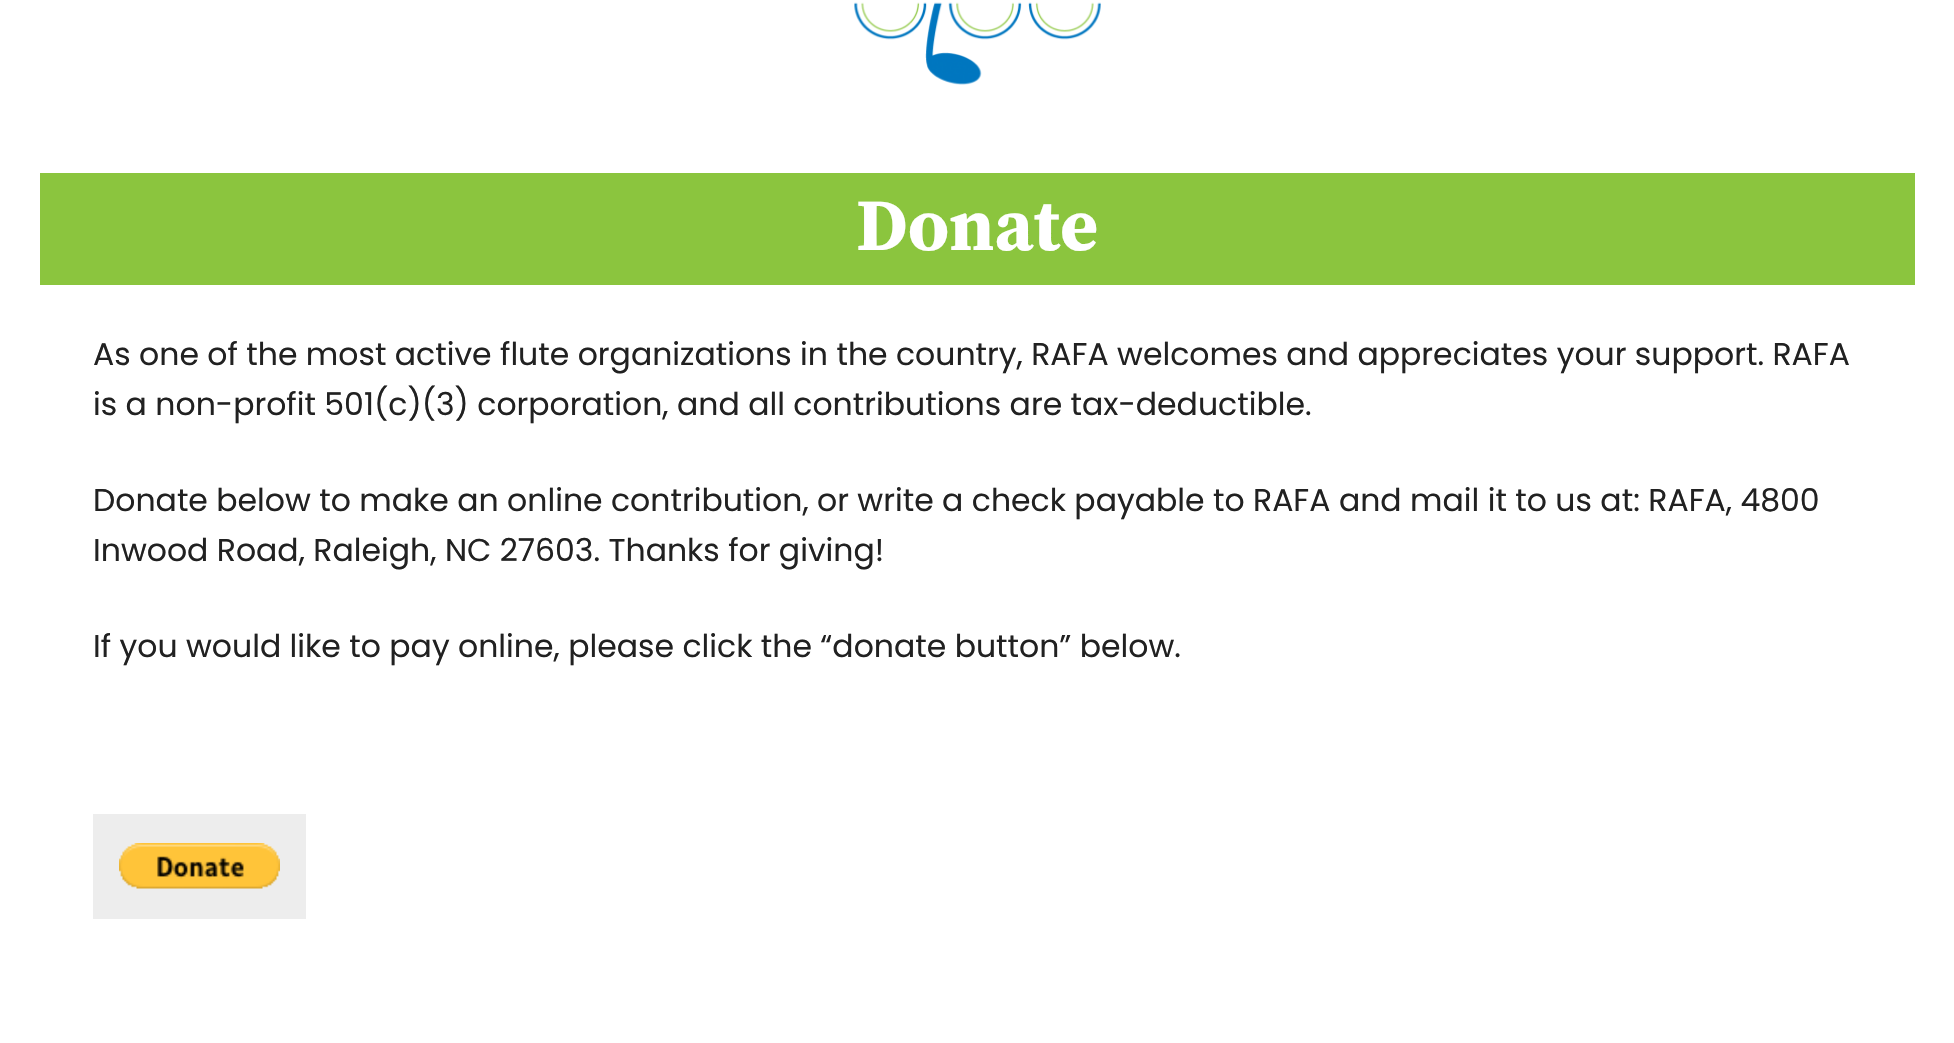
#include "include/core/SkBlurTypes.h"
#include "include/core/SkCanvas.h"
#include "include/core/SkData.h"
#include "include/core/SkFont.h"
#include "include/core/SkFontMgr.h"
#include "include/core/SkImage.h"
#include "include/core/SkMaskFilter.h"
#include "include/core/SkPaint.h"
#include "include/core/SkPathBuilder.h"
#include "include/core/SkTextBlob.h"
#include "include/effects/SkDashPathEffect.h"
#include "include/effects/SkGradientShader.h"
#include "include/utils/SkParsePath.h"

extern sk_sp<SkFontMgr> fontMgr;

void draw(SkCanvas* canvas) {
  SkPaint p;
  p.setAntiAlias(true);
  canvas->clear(SK_ColorWHITE);
  canvas->drawImageRect(SkImages::DeferredFromEncodedData(SkData::MakeFromFileName("images/1.png")), SkRect::MakeLTRB(854, 2, 1101, 85), SkSamplingOptions());
  p.setColor(SkColorSetRGB(139, 197, 62));
  canvas->drawRect(SkRect::MakeLTRB(40, 173, 1915, 285), p);
  p.setColor(SkColorSetRGB(237, 237, 237));
  canvas->drawRect(SkRect::MakeLTRB(93, 814, 306, 919), p);
  canvas->drawImageRect(SkImages::DeferredFromEncodedData(SkData::MakeFromFileName("images/2.png")), SkRect::MakeLTRB(119, 843, 280, 889), SkSamplingOptions());
  SkFont font1(fontMgr->matchFamilyStyle("Source Serif Pro", SkFontStyle::Bold()), 73.5f);
  font1.setSubpixel(true);
  p.setColor(SK_ColorWHITE);
  canvas->drawString("Donate", 856, 250, font1, p);
  SkFont font2(fontMgr->matchFamilyStyle("Poppins", SkFontStyle::Normal()), 31.5f);
  font2.setSubpixel(true);
  p.setColor(SkColorSetRGB(33, 33, 33));
  canvas->drawString("As one of the most active flute organizations in the country, RAFA welcomes and appreciates your support. RAFA", 93, 365, font2, p);
  canvas->drawString("is a non-profit 501(c)(3) corporation, and all contributions are tax-deductible.", 93, 415, font2, p);
  canvas->drawString("Donate below to make an online contribution, or write a check payable to RAFA and mail it to us at: RAFA, 4800", 93, 511, font2, p);
  canvas->drawString("Inwood Road, Raleigh, NC 27603. Thanks for giving!", 93, 561, font2, p);
  canvas->drawString("If you would like to pay online, please click the “donate button” below.", 93, 657, font2, p);
}
